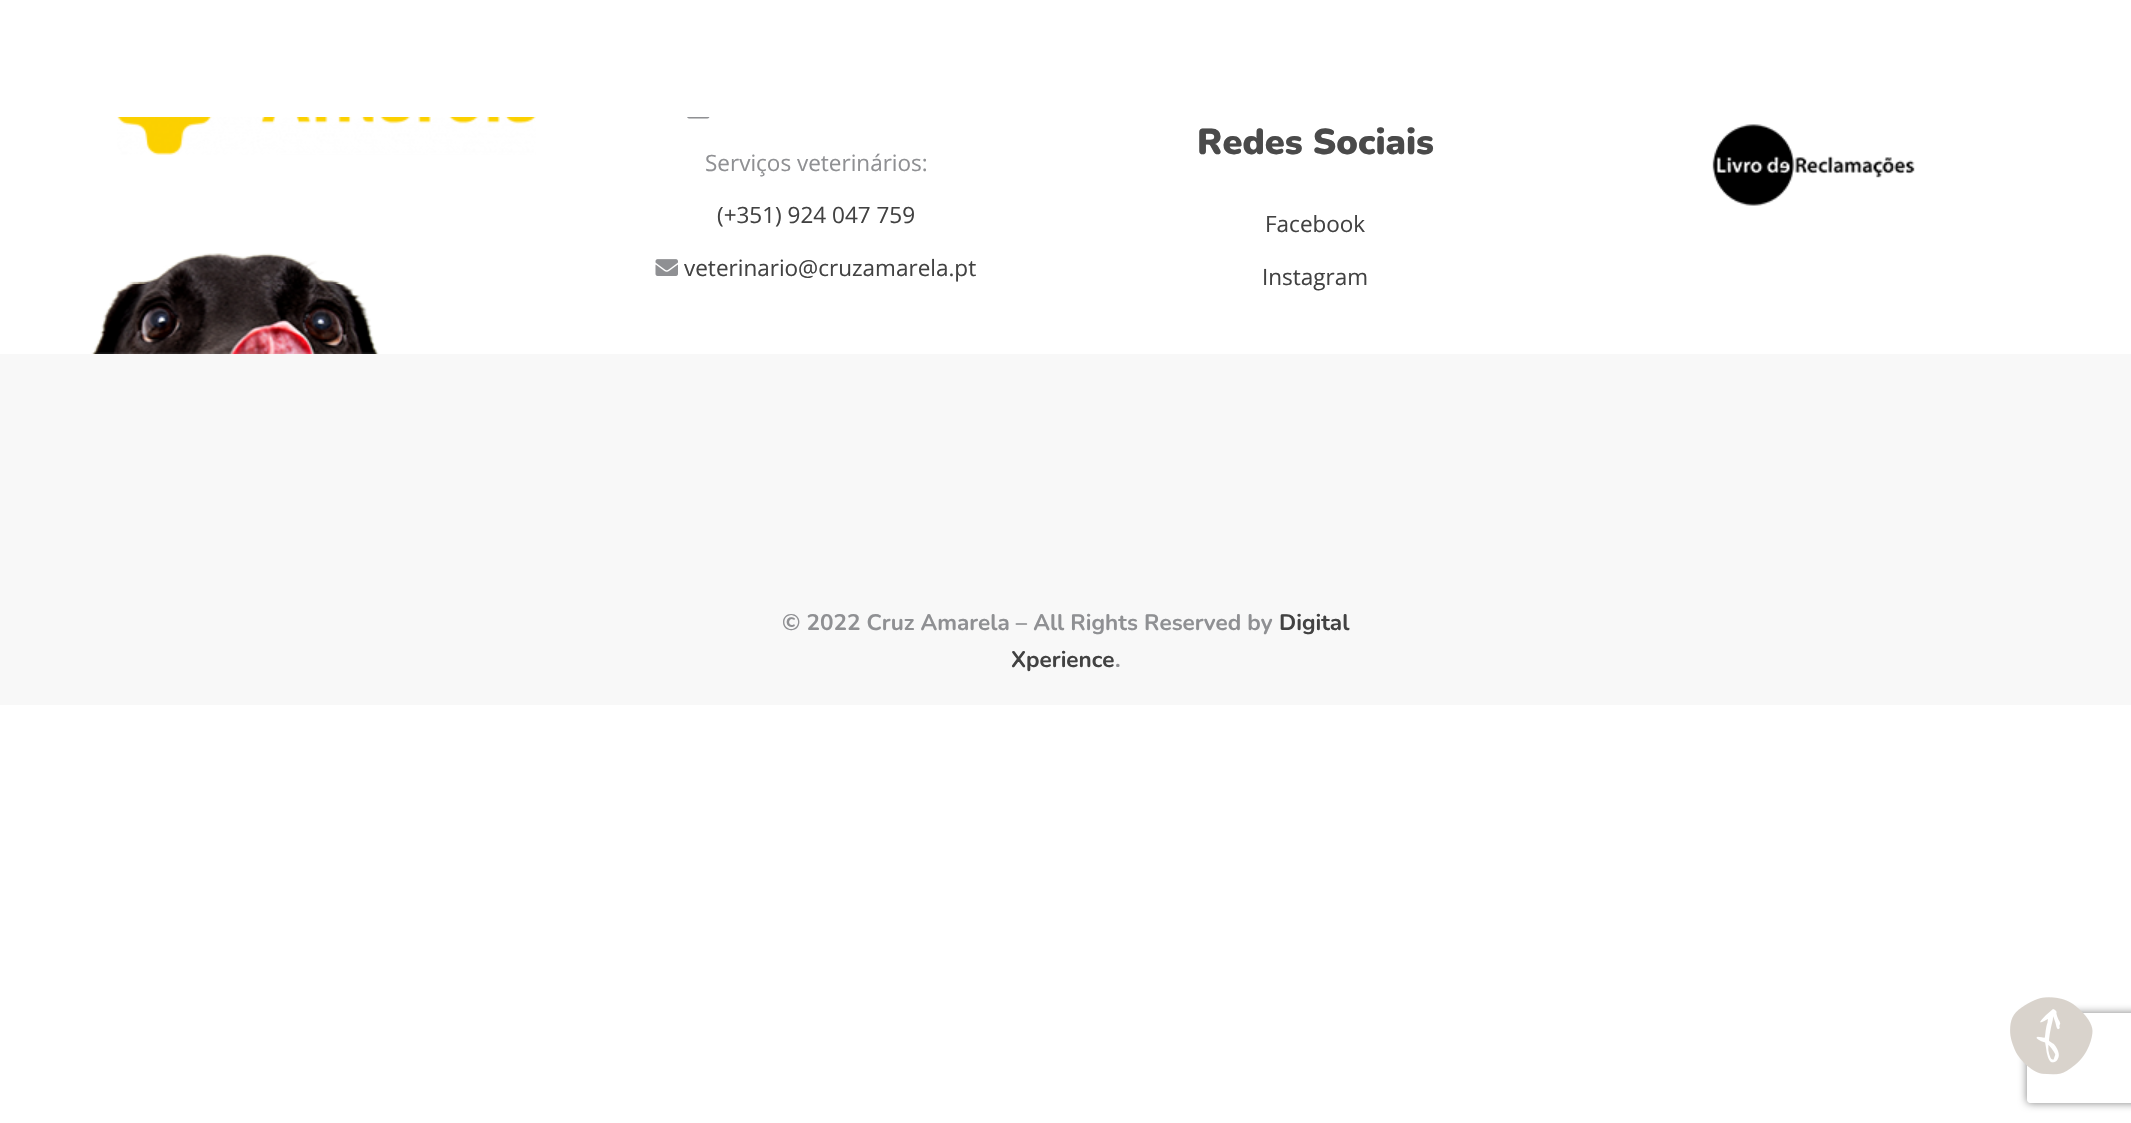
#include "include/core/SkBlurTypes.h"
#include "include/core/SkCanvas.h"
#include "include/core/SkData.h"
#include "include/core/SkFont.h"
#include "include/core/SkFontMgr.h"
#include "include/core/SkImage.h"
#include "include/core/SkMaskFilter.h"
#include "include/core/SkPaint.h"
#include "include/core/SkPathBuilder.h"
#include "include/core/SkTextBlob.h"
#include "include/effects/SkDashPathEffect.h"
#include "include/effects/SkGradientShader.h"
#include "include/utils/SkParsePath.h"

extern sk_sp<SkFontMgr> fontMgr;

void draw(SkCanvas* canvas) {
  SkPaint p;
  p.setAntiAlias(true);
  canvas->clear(SK_ColorWHITE);
  canvas->drawImageRect(SkImages::DeferredFromEncodedData(SkData::MakeFromFileName("images/1.png")), SkRect::MakeLTRB(91, 253, 379, 354), SkSamplingOptions());
  canvas->drawImageRect(SkImages::DeferredFromEncodedData(SkData::MakeFromFileName("images/2.png")), SkRect::MakeLTRB(117, 117, 536, 155), SkSamplingOptions());
  canvas->drawImageRect(SkImages::DeferredFromEncodedData(SkData::MakeFromFileName("images/3.png")), SkRect::MakeLTRB(687, 117, 710, 119), SkSamplingOptions());
  canvas->drawImageRect(SkImages::DeferredFromEncodedData(SkData::MakeFromFileName("images/4.png")), SkRect::MakeLTRB(655, 259, 678, 276), SkSamplingOptions());
  canvas->drawImageRect(SkImages::DeferredFromEncodedData(SkData::MakeFromFileName("images/5.png")), SkRect::MakeLTRB(1712, 124, 1915, 206), SkSamplingOptions());
  p.setColor(SkColorSetRGB(248, 248, 248));
  canvas->drawRect(SkRect::MakeLTRB(0, 354, 2131, 705), p);
  canvas->save();
  canvas->clipPath(SkPathBuilder(SkPathFillType::kEvenOdd).moveTo(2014, 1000).lineTo(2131, 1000).lineTo(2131, 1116).lineTo(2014, 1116).close().moveTo(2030, 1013).lineTo(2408, 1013).cubicTo(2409.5f, 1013, 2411, 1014.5f, 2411, 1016).lineTo(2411, 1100).cubicTo(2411, 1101.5f, 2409.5f, 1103, 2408, 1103).lineTo(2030, 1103).cubicTo(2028.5f, 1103, 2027, 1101.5f, 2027, 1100).lineTo(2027, 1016).cubicTo(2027, 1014.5f, 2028.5f, 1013, 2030, 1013).close().detach(), true);
  p.setColor(SkColorSetRGB(128, 128, 128));
  p.setMaskFilter(SkMaskFilter::MakeBlur(kNormal_SkBlurStyle, 4));
  canvas->drawRoundRect(SkRect::MakeLTRB(2027, 1013, 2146, 1103), 3, 3, p);
  p.setMaskFilter(nullptr);
  canvas->restore();
  canvas->drawImageRect(SkImages::DeferredFromEncodedData(SkData::MakeFromFileName("images/6.png")), SkRect::MakeLTRB(2010, 997, 2093, 1075), SkSamplingOptions());
  SkFont font1(fontMgr->matchFamilyStyle("Open Sans", SkFontStyle::Normal()), 22.5f);
  font1.setSubpixel(true);
  p.setColor(SkColorSetRGB(143, 144, 147));
  canvas->drawString("Serviços veterinários:", 705, 171, font1, p);
  p.setColor(SkColorSetRGB(66, 66, 66));
  canvas->drawString("(+351) 924 047 759", 717, 223, font1, p);
  canvas->drawString("veterinario@cruzamarela.pt", 684, 276, font1, p);
  SkFont font2(fontMgr->matchFamilyStyle("Nunito", SkFontStyle(900, SkFontStyle::kNormal_Width, SkFontStyle::kUpright_Slant)), 36);
  font2.setSubpixel(true);
  p.setColor(SkColorSetRGB(74, 74, 74));
  canvas->drawString("Redes Sociais", 1197, 154, font2, p);
  p.setColor(SkColorSetRGB(66, 66, 66));
  canvas->drawString("Facebook", 1265, 232, font1, p);
  canvas->drawString("Instagram", 1262, 285, font1, p);
  SkFont font3(fontMgr->matchFamilyStyle("Nunito", SkFontStyle::Bold()), 22.5f);
  font3.setSubpixel(true);
  p.setColor(SkColorSetRGB(143, 144, 147));
  canvas->drawString("© 2022 Cruz Amarela – All Rights Reserved by", 782, 630, font3, p);
  p.setColor(SkColorSetRGB(66, 66, 66));
  canvas->drawString("Digital", 1279, 630, font3, p);
  canvas->drawString("Xperience", 1011, 667, font3, p);
  p.setColor(SkColorSetRGB(143, 144, 147));
  canvas->drawString(".", 1115, 667, font3, p);
}
